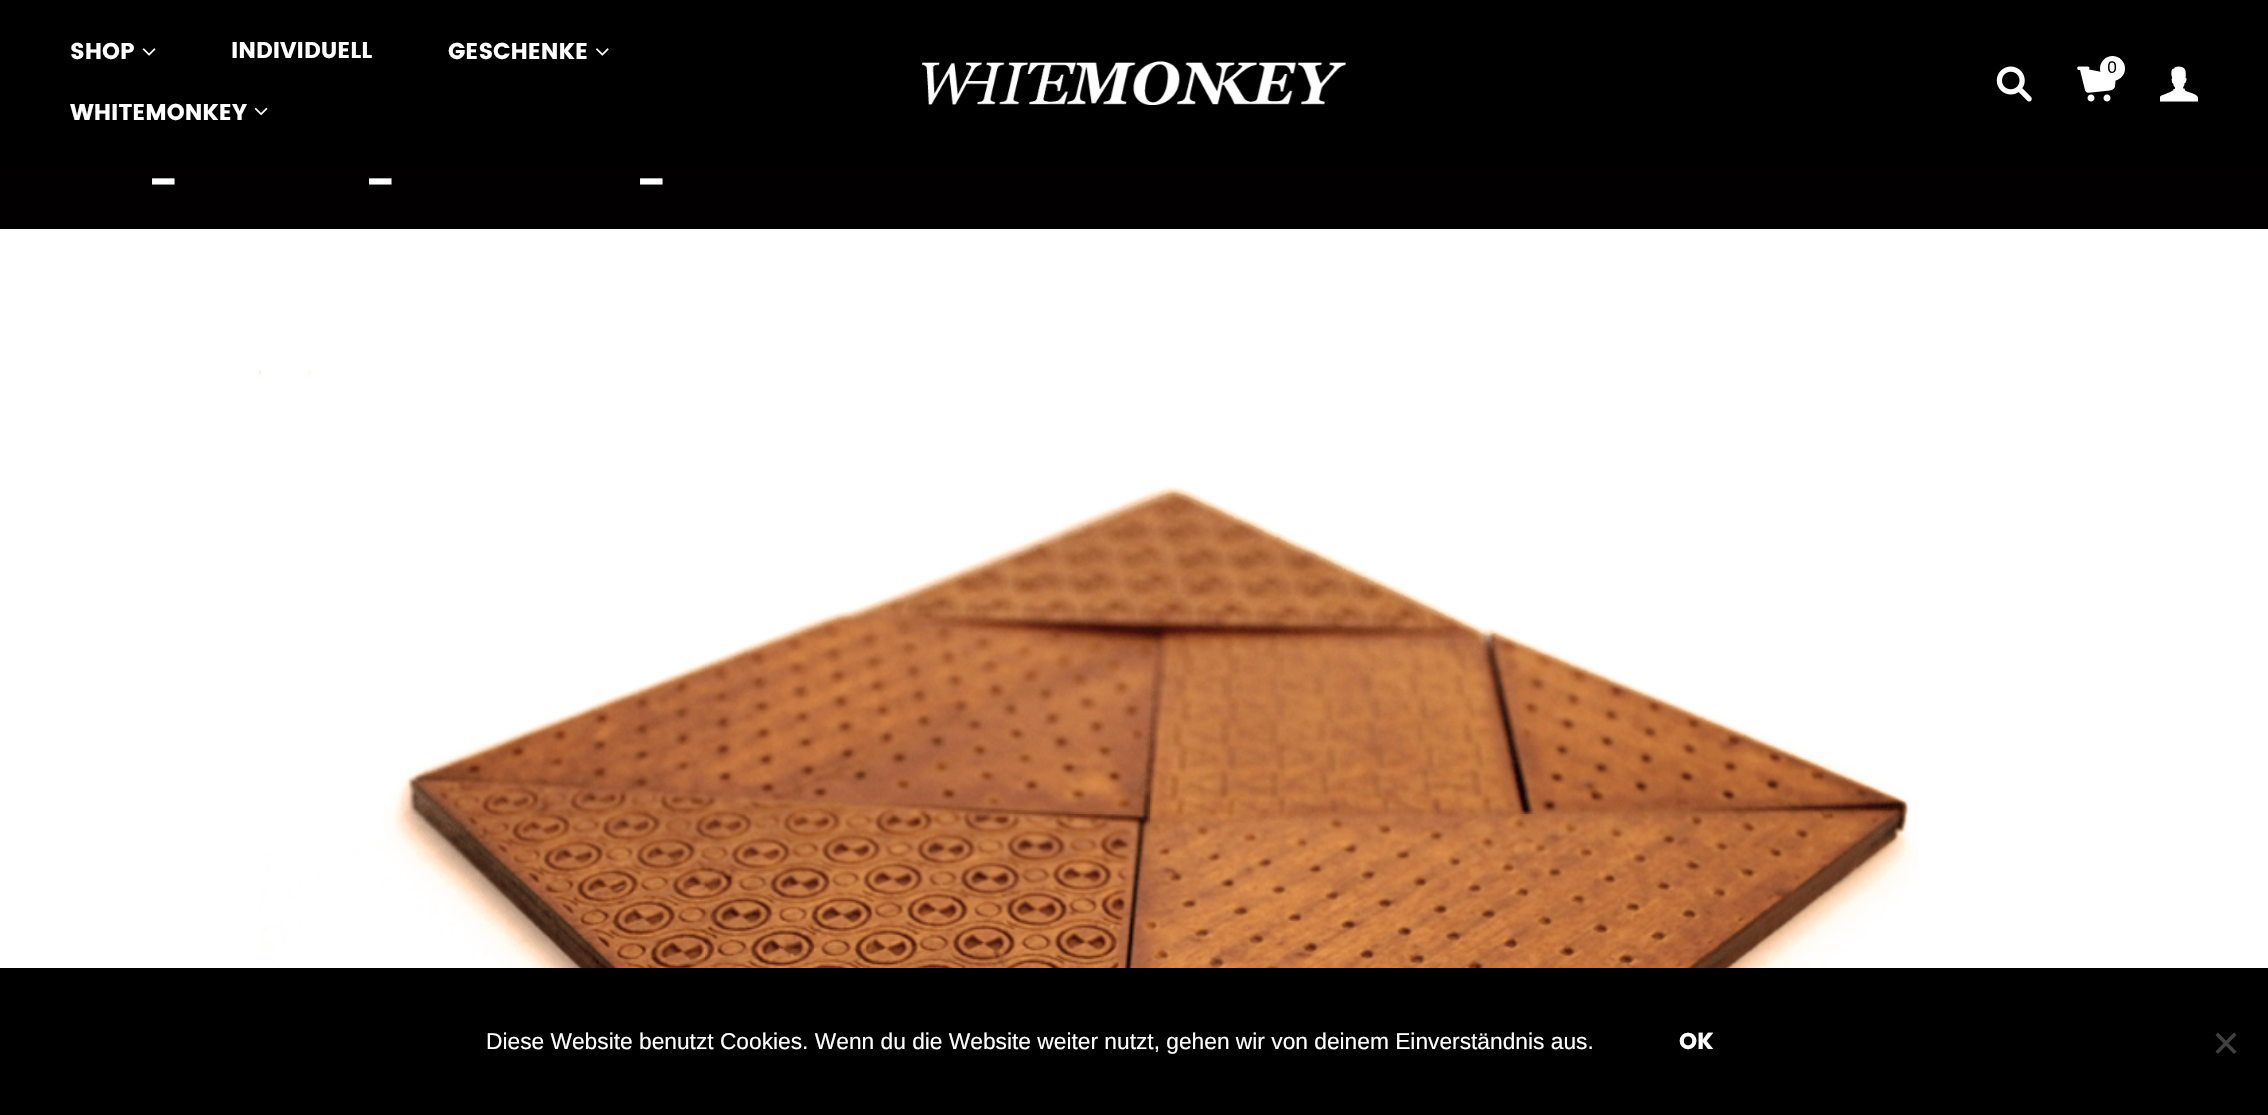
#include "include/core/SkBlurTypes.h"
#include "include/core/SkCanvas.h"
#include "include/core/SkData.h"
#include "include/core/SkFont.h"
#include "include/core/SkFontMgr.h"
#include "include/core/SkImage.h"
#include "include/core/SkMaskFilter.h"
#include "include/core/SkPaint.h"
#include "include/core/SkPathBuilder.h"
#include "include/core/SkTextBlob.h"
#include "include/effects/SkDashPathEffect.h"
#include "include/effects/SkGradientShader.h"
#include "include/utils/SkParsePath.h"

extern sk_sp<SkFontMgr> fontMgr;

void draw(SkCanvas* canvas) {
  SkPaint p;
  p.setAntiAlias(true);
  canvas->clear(SK_ColorWHITE);
  p.setColor(SK_ColorBLACK);
  canvas->drawRect(SkRect::MakeLTRB(0, 0, 2268, 168), p);
  canvas->drawImageRect(SkImages::DeferredFromEncodedData(SkData::MakeFromFileName("images/1.png")), SkRect::MakeLTRB(142, 48, 156, 56), SkSamplingOptions());
  canvas->drawImageRect(SkImages::DeferredFromEncodedData(SkData::MakeFromFileName("images/2.png")), SkRect::MakeLTRB(596, 48, 609, 56), SkSamplingOptions());
  canvas->drawImageRect(SkImages::DeferredFromEncodedData(SkData::MakeFromFileName("images/3.png")), SkRect::MakeLTRB(254, 107, 268, 116), SkSamplingOptions());
  canvas->drawImageRect(SkImages::DeferredFromEncodedData(SkData::MakeFromFileName("images/4.png")), SkRect::MakeLTRB(922, 61, 1346, 105), SkSamplingOptions());
  canvas->drawImageRect(SkImages::DeferredFromEncodedData(SkData::MakeFromFileName("images/5.png")), SkRect::MakeLTRB(1996, 66, 2032, 102), SkSamplingOptions());
  canvas->drawImageRect(SkImages::DeferredFromEncodedData(SkData::MakeFromFileName("images/6.png")), SkRect::MakeLTRB(2077, 66, 2116, 102), SkSamplingOptions());
  p.setColor(SK_ColorWHITE);
  canvas->drawCircle(2112.5f, 68.5f, 12.5f, p);
  canvas->drawImageRect(SkImages::DeferredFromEncodedData(SkData::MakeFromFileName("images/7.png")), SkRect::MakeLTRB(2160, 66, 2198, 102), SkSamplingOptions());
  p.setColor(SkColorSetRGB(2, 0, 0));
  canvas->drawRect(SkRect::MakeLTRB(0, 168, 2268, 229), p);
  canvas->drawImageRect(SkImages::DeferredFromEncodedData(SkData::MakeFromFileName("images/8.png")), SkRect::MakeLTRB(259, 369, 1919, 968), SkSamplingOptions());
  p.setColor(SK_ColorBLACK);
  canvas->drawRect(SkRect::MakeLTRB(0, 968, 2268, 1115), p);
  p.setColor(SkColorSetRGB(64, 64, 64));
  canvas->drawPath(SkPathBuilder().moveTo(2234, 1032.5f).lineTo(2236.5f, 1035).lineTo(2218, 1054).lineTo(2215.5f, 1051.5f).close().detach(), p);
  canvas->drawPath(SkPathBuilder().moveTo(2215.5f, 1035).lineTo(2218, 1032.5f).lineTo(2236.5f, 1051.5f).lineTo(2234, 1054).close().detach(), p);
  SkFont font1(fontMgr->matchFamilyStyle("Poppins", SkFontStyle::Bold()), 22.75f);
  font1.setSubpixel(true);
  p.setColor(SK_ColorWHITE);
  canvas->drawString("SHOP", 70, 59, font1, p);
  canvas->drawString("INDIVIDUELL", 231, 58, font1, p);
  canvas->drawString("GESCHENKE", 448, 59, font1, p);
  canvas->drawString("WHITEMONKEY", 70, 120, font1, p);
  SkFont font2(fontMgr->matchFamilyStyle("Poppins", SkFontStyle::Normal()), 16);
  font2.setSubpixel(true);
  p.setColor(SK_ColorBLACK);
  canvas->drawString("0", 2107, 73, font2, p);
  SkFont font3(fontMgr->matchFamilyStyle("Poppins", SkFontStyle::Bold()), 36);
  font3.setSubpixel(true);
  p.setColor(SK_ColorWHITE);
  canvas->drawString("_", 149, 177, font3, p);
  canvas->drawString("_", 366, 177, font3, p);
  canvas->drawString("_", 637, 177, font3, p);
  SkFont font4(fontMgr->matchFamilyStyle("Liberation Sans", SkFontStyle::Normal()), 22.75f);
  font4.setSubpixel(true);
  canvas->drawString("Diese Website benutzt Cookies. Wenn du die Website weiter nutzt, gehen wir von deinem Einverständnis aus.", 486, 1049, font4, p);
  SkFont font5(fontMgr->matchFamilyStyle("Poppins", SkFontStyle::Bold()), 23);
  font5.setSubpixel(true);
  canvas->drawString("OK", 1679, 1049, font5, p);
}
